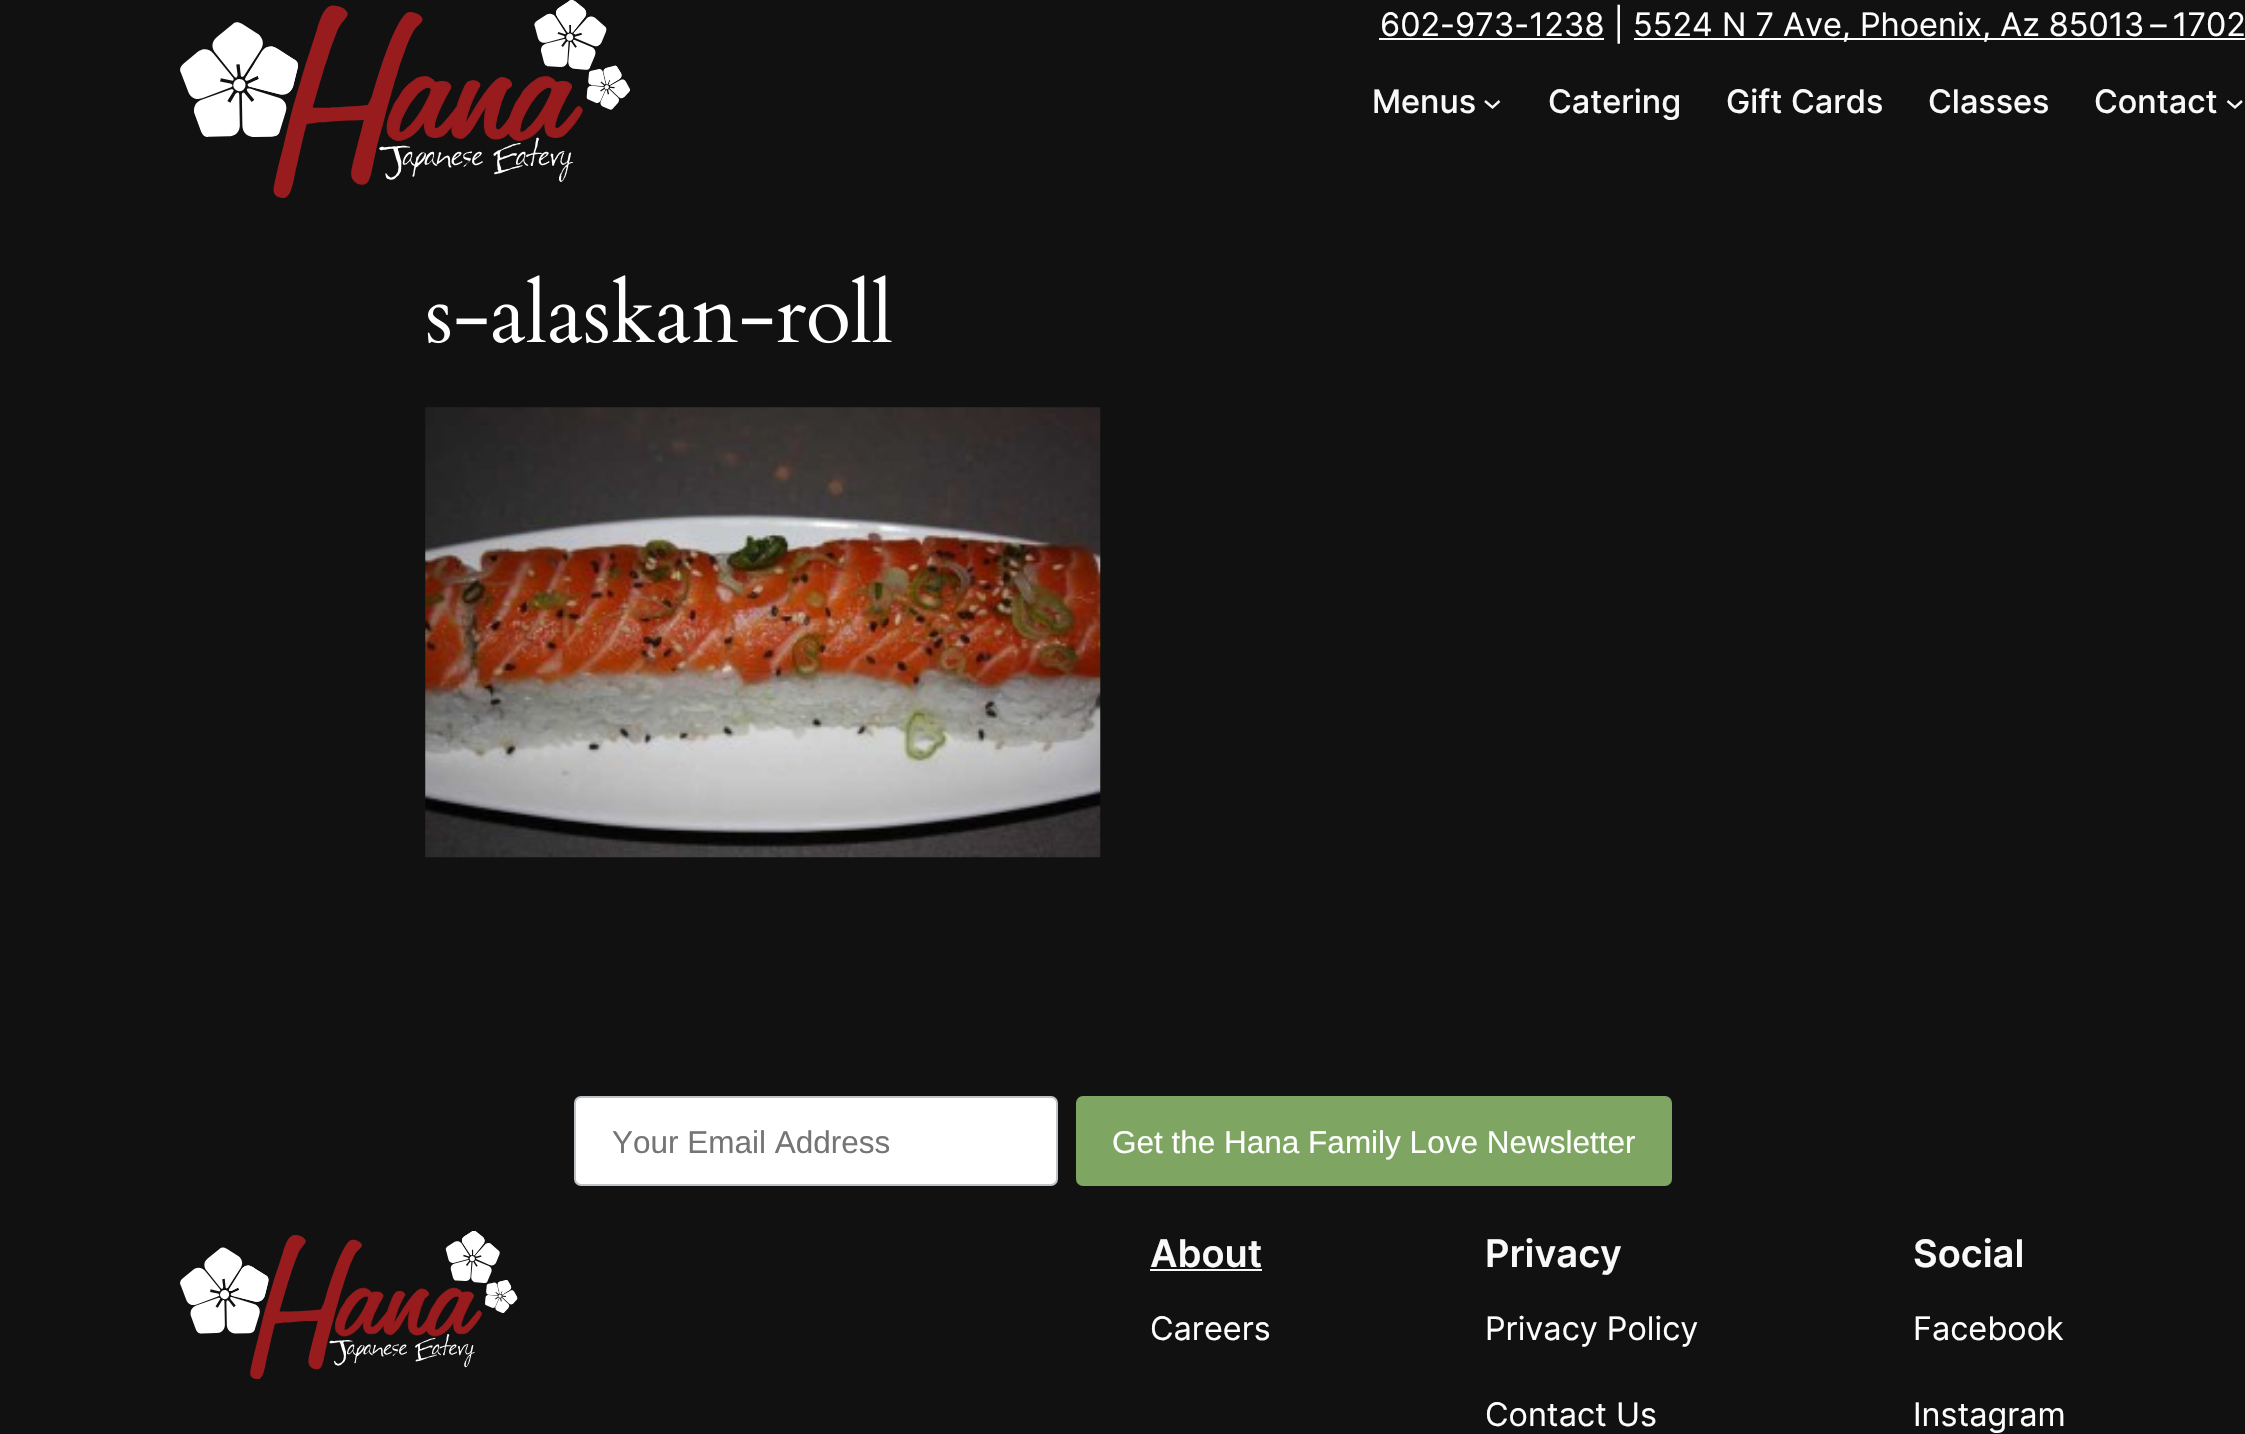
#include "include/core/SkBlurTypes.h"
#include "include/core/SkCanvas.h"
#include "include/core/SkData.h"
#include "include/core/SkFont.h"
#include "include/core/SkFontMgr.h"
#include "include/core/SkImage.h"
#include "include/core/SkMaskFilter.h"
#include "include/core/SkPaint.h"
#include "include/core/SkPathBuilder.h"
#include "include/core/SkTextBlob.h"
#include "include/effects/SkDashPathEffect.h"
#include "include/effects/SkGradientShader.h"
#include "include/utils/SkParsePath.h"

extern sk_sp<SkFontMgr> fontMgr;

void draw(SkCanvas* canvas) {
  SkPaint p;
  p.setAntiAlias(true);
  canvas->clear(SkColorSetRGB(17, 17, 17));
  canvas->drawImageRect(SkImages::DeferredFromEncodedData(SkData::MakeFromFileName("images/1.png")), SkRect::MakeLTRB(180, 0, 630, 198), SkSamplingOptions());
  p.setColor(SK_ColorWHITE);
  canvas->drawRect(SkRect::MakeLTRB(1379, 38, 1604, 40), p);
  canvas->drawRect(SkRect::MakeLTRB(1634, 38, 2245, 40), p);
  p.setStyle(SkPaint::kStroke_Style);
  p.setStrokeWidth(2.4f);
  p.setColor(SkColorSetRGB(249, 249, 249));
  canvas->drawPath(SkPathBuilder().moveTo(1485, 101).lineTo(1492.5f, 107.5f).lineTo(1499.5f, 101).detach(), p);
  canvas->drawPath(SkPathBuilder().moveTo(2227.5f, 101).lineTo(2235, 107.5f).lineTo(2242, 101).detach(), p);
  canvas->drawImageRect(SkImages::DeferredFromEncodedData(SkData::MakeFromFileName("images/2.png")), SkRect::MakeLTRB(427, 275, 892, 344), SkSamplingOptions());
  canvas->drawImageRect(SkImages::DeferredFromEncodedData(SkData::MakeFromFileName("images/3.png")), SkRect::MakeLTRB(425, 407, 1101, 858), SkSamplingOptions());
  p.setStyle(SkPaint::kFill_Style);
  p.setColor(SK_ColorWHITE);
  canvas->drawRoundRect(SkRect::MakeLTRB(575, 1097, 1057, 1185), 6, 6, p);
  p.setStyle(SkPaint::kStroke_Style);
  p.setStrokeWidth(2);
  p.setColor(SkColorSetRGB(190, 195, 200));
  canvas->drawRoundRect(SkRect::MakeLTRB(575, 1097, 1057, 1185), 6, 6, p);
  p.setStyle(SkPaint::kFill_Style);
  p.setColor(SkColorSetRGB(126, 166, 98));
  canvas->drawRoundRect(SkRect::MakeLTRB(1076, 1096, 1672, 1186), 7, 7, p);
  canvas->drawImageRect(SkImages::DeferredFromEncodedData(SkData::MakeFromFileName("images/4.png")), SkRect::MakeLTRB(180, 1231, 518, 1379), SkSamplingOptions());
  p.setColor(SkColorSetRGB(249, 249, 249));
  canvas->drawRect(SkRect::MakeLTRB(1150, 1269, 1262, 1271), p);
  SkFont font1(fontMgr->matchFamilyStyle("Inter", SkFontStyle::Normal()), 32.4f);
  font1.setSubpixel(true);
  p.setColor(SK_ColorWHITE);
  canvas->drawString("602-973-1238 |", 1380, 36, font1, p);
  canvas->drawString("5524 N 7 Ave, Phoenix, Az 85013 – 1702", 1633, 36, font1, p);
  SkFont font2(fontMgr->matchFamilyStyle("Inter", SkFontStyle(500, SkFontStyle::kNormal_Width, SkFontStyle::kUpright_Slant)), 32.4f);
  font2.setSubpixel(true);
  p.setColor(SkColorSetRGB(249, 249, 249));
  canvas->drawString("Menus", 1372, 113, font2, p);
  canvas->drawString("Catering", 1548, 113, font2, p);
  canvas->drawString("Gift Cards", 1726, 113, font2, p);
  canvas->drawString("Classes", 1928, 113, font2, p);
  canvas->drawString("Contact", 2094, 113, font2, p);
  SkFont font3(fontMgr->matchFamilyStyle("Liberation Sans", SkFontStyle::Normal()), 31.5f);
  font3.setSubpixel(true);
  p.setColor(SkColorSetRGB(117, 117, 117));
  canvas->drawString("Your Email Address", 612, 1153, font3, p);
  p.setColor(SK_ColorWHITE);
  canvas->drawString("Get the Hana Family Love Newsletter", 1112, 1153, font3, p);
  SkFont font4(fontMgr->matchFamilyStyle("Inter", SkFontStyle(600, SkFontStyle::kNormal_Width, SkFontStyle::kUpright_Slant)), 38);
  font4.setSubpixel(true);
  p.setColor(SkColorSetRGB(249, 249, 249));
  canvas->drawString("About", 1150, 1267, font4, p);
  p.setColor(SK_ColorWHITE);
  canvas->drawString("Careers", 1150, 1340, font1, p);
  p.setColor(SkColorSetRGB(249, 249, 249));
  canvas->drawString("Privacy", 1485, 1267, font4, p);
  p.setColor(SK_ColorWHITE);
  canvas->drawString("Privacy Policy", 1485, 1340, font1, p);
  canvas->drawString("Contact Us", 1485, 1426, font1, p);
  p.setColor(SkColorSetRGB(249, 249, 249));
  canvas->drawString("Social", 1913, 1267, font4, p);
  p.setColor(SK_ColorWHITE);
  canvas->drawString("Facebook", 1913, 1340, font1, p);
  canvas->drawString("Instagram", 1913, 1426, font1, p);
}
